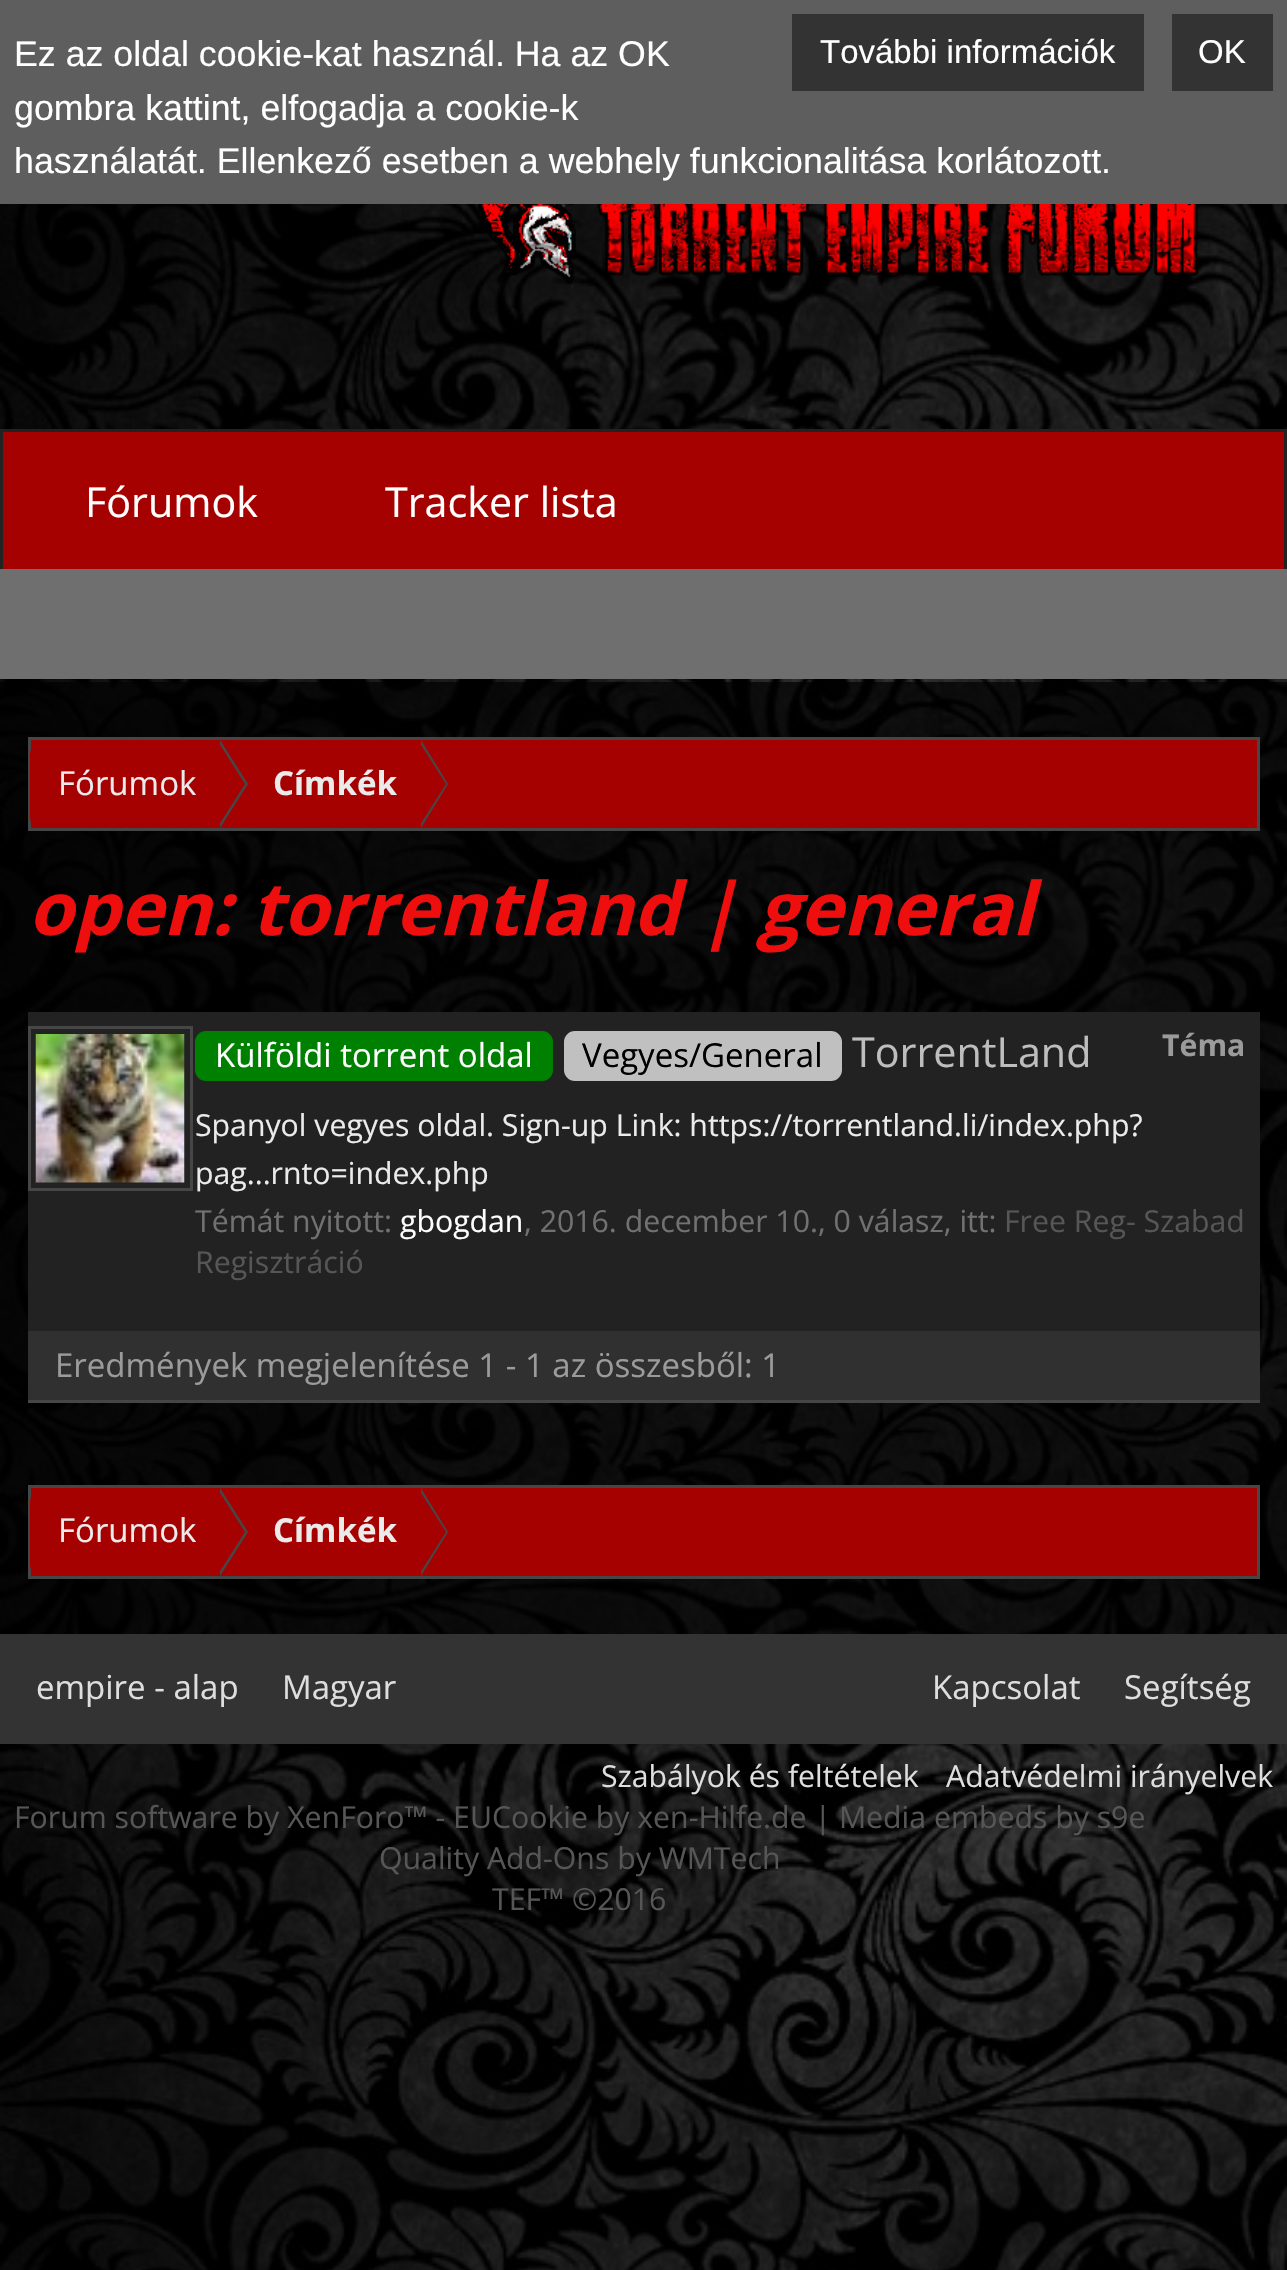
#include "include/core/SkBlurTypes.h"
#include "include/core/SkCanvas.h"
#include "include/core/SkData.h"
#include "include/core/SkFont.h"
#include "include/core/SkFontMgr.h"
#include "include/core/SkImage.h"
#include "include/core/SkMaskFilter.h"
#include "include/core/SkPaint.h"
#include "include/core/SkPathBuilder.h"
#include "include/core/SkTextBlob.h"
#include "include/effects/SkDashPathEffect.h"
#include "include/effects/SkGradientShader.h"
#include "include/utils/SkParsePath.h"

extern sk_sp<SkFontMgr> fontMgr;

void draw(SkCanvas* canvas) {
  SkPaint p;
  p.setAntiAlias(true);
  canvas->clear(SK_ColorWHITE);
  canvas->drawImageRect(SkImages::DeferredFromEncodedData(SkData::MakeFromFileName("images/1.png")), SkRect::MakeLTRB(0, 204, 1287, 2270), SkSamplingOptions());
  p.setColor(SkColorSetRGB(94, 94, 94));
  canvas->drawRect(SkRect::MakeLTRB(0, 0, 1287, 204), p);
  p.setColor(SkColorSetRGB(51, 51, 51));
  canvas->drawRect(SkRect::MakeLTRB(792, 14, 1144, 91), p);
  canvas->drawRect(SkRect::MakeLTRB(1172, 14, 1273, 91), p);
  canvas->drawRect(SkRect::MakeLTRB(0, 1634, 1287, 1744), p);
  canvas->drawImageRect(SkImages::DeferredFromEncodedData(SkData::MakeFromFileName("images/2.png")), SkRect::MakeLTRB(478, 204, 1199, 290), SkSamplingOptions());
  p.setColor(SkColorSetRGB(166, 1, 1));
  canvas->drawRect(SkRect::MakeLTRB(1.5f, 430.5f, 1285.5f, 570.5f), p);
  p.setStyle(SkPaint::kStroke_Style);
  p.setStrokeWidth(3);
  p.setColor(SkColorSetRGB(34, 34, 34));
  canvas->drawRect(SkRect::MakeLTRB(1.5f, 430.5f, 1285.5f, 570.5f), p);
  p.setStyle(SkPaint::kFill_Style);
  p.setColor(SkColorSetRGB(111, 111, 111));
  canvas->drawRect(SkRect::MakeLTRB(0, 569, 1287, 679), p);
  p.setColor(SkColorSetARGB(179, 0, 0, 0));
  canvas->drawRect(SkRect::MakeLTRB(0, 682, 1287, 1634), p);
  p.setColor(SkColorSetRGB(166, 1, 1));
  canvas->drawRect(SkRect::MakeLTRB(29.5f, 738.5f, 1258.5f, 829.5f), p);
  p.setStyle(SkPaint::kStroke_Style);
  p.setColor(SkColorSetRGB(70, 70, 70));
  canvas->drawRect(SkRect::MakeLTRB(29.5f, 738.5f, 1258.5f, 829.5f), p);
  canvas->save();
  canvas->clipRect(SkRect::MakeLTRB(30, 740, 1257, 828));
  p.setStyle(SkPaint::kFill_Style);
  p.setColor(SkColorSetRGB(166, 1, 1));
  canvas->drawPath(SkPathBuilder().moveTo(44, 740).lineTo(223, 740).lineTo(223, 831).lineTo(44, 831).cubicTo(36.5f, 831, 30, 824.5f, 30, 817).lineTo(30, 754).cubicTo(30, 746.5f, 36.5f, 740, 44, 740).close().detach(), p);
  canvas->restore();
  p.setColor(SkColorSetRGB(70, 70, 70));
  canvas->drawPath(SkPathBuilder().moveTo(220, 828).lineTo(220, 740).lineTo(248, 784).close().detach(), p);
  p.setColor(SkColorSetRGB(166, 1, 1));
  canvas->drawPath(SkPathBuilder().moveTo(217, 828).lineTo(217, 740).lineTo(245, 784).close().detach(), p);
  p.setColor(SkColorSetRGB(70, 70, 70));
  canvas->drawPath(SkPathBuilder().moveTo(421, 828).lineTo(421, 740).lineTo(448, 784).close().detach(), p);
  p.setColor(SkColorSetRGB(166, 1, 1));
  canvas->drawPath(SkPathBuilder().moveTo(418, 828).lineTo(418, 740).lineTo(446, 784).close().detach(), p);
  p.setColor(SkColorSetRGB(34, 34, 34));
  canvas->drawRect(SkRect::MakeLTRB(28, 1012, 1260, 1331), p);
  p.setColor(SkColorSetRGB(48, 48, 48));
  canvas->drawRect(SkRect::MakeLTRB(28, 1331, 1260, 1400), p);
  p.setStyle(SkPaint::kStroke_Style);
  p.setColor(SkColorSetRGB(70, 70, 70));
  canvas->drawRect(SkRect::MakeLTRB(29.5f, 1027.5f, 191.5f, 1189.5f), p);
  canvas->drawImageRect(SkImages::DeferredFromEncodedData(SkData::MakeFromFileName("images/3.png")), SkRect::MakeLTRB(35, 1034, 185, 1183), SkSamplingOptions());
  p.setStyle(SkPaint::kFill_Style);
  p.setColor(SkColorSetRGB(0, 128, 0));
  canvas->drawRoundRect(SkRect::MakeLTRB(196.5f, 1032.5f, 551.5f, 1079.5f), 9.5f, 9.5f, p);
  p.setStyle(SkPaint::kStroke_Style);
  canvas->drawRoundRect(SkRect::MakeLTRB(196.5f, 1032.5f, 551.5f, 1079.5f), 9.5f, 9.5f, p);
  p.setStyle(SkPaint::kFill_Style);
  p.setColor(SkColorSetRGB(192, 192, 192));
  canvas->drawRoundRect(SkRect::MakeLTRB(565.5f, 1032.5f, 840.5f, 1079.5f), 9.5f, 9.5f, p);
  p.setStyle(SkPaint::kStroke_Style);
  canvas->drawRoundRect(SkRect::MakeLTRB(565.5f, 1032.5f, 840.5f, 1079.5f), 9.5f, 9.5f, p);
  p.setStyle(SkPaint::kFill_Style);
  p.setColor(SkColorSetRGB(70, 70, 70));
  canvas->drawRect(SkRect::MakeLTRB(28, 1400, 1260, 1403), p);
  p.setColor(SkColorSetRGB(166, 1, 1));
  canvas->drawRect(SkRect::MakeLTRB(29.5f, 1486.5f, 1258.5f, 1577.5f), p);
  p.setStyle(SkPaint::kStroke_Style);
  p.setColor(SkColorSetRGB(70, 70, 70));
  canvas->drawRect(SkRect::MakeLTRB(29.5f, 1486.5f, 1258.5f, 1577.5f), p);
  canvas->save();
  canvas->clipRect(SkRect::MakeLTRB(30, 1488, 1257, 1576));
  p.setStyle(SkPaint::kFill_Style);
  p.setColor(SkColorSetRGB(166, 1, 1));
  canvas->drawPath(SkPathBuilder().moveTo(44, 1488).lineTo(223, 1488).lineTo(223, 1579).lineTo(44, 1579).cubicTo(36.5f, 1579, 30, 1572.5f, 30, 1565).lineTo(30, 1502).cubicTo(30, 1494.5f, 36.5f, 1488, 44, 1488).close().detach(), p);
  canvas->restore();
  p.setColor(SkColorSetRGB(70, 70, 70));
  canvas->drawPath(SkPathBuilder().moveTo(220, 1576).lineTo(220, 1488).lineTo(248, 1532).close().detach(), p);
  p.setColor(SkColorSetRGB(166, 1, 1));
  canvas->drawPath(SkPathBuilder().moveTo(217, 1576).lineTo(217, 1488).lineTo(245, 1532).close().detach(), p);
  p.setColor(SkColorSetRGB(70, 70, 70));
  canvas->drawPath(SkPathBuilder().moveTo(421, 1576).lineTo(421, 1488).lineTo(448, 1532).close().detach(), p);
  p.setColor(SkColorSetRGB(166, 1, 1));
  canvas->drawPath(SkPathBuilder().moveTo(418, 1576).lineTo(418, 1488).lineTo(446, 1532).close().detach(), p);
  SkFont font1(fontMgr->matchFamilyStyle("Liberation Sans", SkFontStyle::Normal()), 33);
  font1.setSubpixel(true);
  p.setColor(SK_ColorWHITE);
  canvas->drawString("További információk", 820, 63, font1, p);
  SkFont font2(fontMgr->matchFamilyStyle("Liberation Sans", SkFontStyle::Normal()), 35.75f);
  font2.setSubpixel(true);
  canvas->drawString("Ez az oldal cookie-kat használ. Ha az OK", 14, 66, font2, p);
  canvas->drawString("gombra kattint, elfogadja a cookie-k", 14, 120, font2, p);
  canvas->drawString("használatát. Ellenkező esetben a webhely funkcionalitása korlátozott.", 14, 173, font2, p);
  canvas->drawString("OK", 1198, 63, font1, p);
  SkFont font3(fontMgr->matchFamilyStyle("Open Sans", SkFontStyle::Normal()), 33);
  font3.setSubpixel(true);
  p.setColor(SkColorSetRGB(222, 222, 222));
  canvas->drawString("empire - alap", 36, 1699, font3, p);
  canvas->drawString("Magyar", 282, 1699, font3, p);
  canvas->drawString("Kapcsolat", 932, 1699, font3, p);
  canvas->drawString("Segítség", 1124, 1699, font3, p);
  SkFont font4(fontMgr->matchFamilyStyle("Open Sans", SkFontStyle::Normal()), 30.25f);
  font4.setSubpixel(true);
  canvas->drawString("Szabályok és feltételek", 601, 1787, font4, p);
  canvas->drawString("Adatvédelmi irányelvek", 946, 1787, font4, p);
  p.setColor(SkColorSetRGB(86, 86, 86));
  canvas->drawString("Forum software by XenForo™ - EUCookie by xen-Hilfe.de | Media embeds by s9e", 14, 1828, font4, p);
  canvas->drawString("Quality Add-Ons by WMTech", 379, 1869, font4, p);
  canvas->drawString("TEF™ ©2016", 492, 1910, font4, p);
  SkFont font5(fontMgr->matchFamilyStyle("Open Sans", SkFontStyle::Normal()), 41.25f);
  font5.setSubpixel(true);
  p.setColor(SK_ColorWHITE);
  canvas->drawString("Fórumok", 85, 517, font5, p);
  canvas->drawString("Tracker lista", 385, 517, font5, p);
  p.setColor(SkColorSetRGB(235, 235, 235));
  canvas->drawString("Fórumok", 58, 795, font3, p);
  SkFont font6(fontMgr->matchFamilyStyle("Open Sans", SkFontStyle::Bold()), 33);
  font6.setSubpixel(true);
  canvas->drawString("Címkék", 273, 795, font6, p);
  SkFont font7(fontMgr->matchFamilyStyle("Open Sans", SkFontStyle::BoldItalic()), 73.3f);
  font7.setSubpixel(true);
  p.setColor(SkColorSetRGB(238, 14, 14));
  canvas->drawString("open: torrentland | general", 28, 935, font7, p);
  p.setColor(SK_ColorWHITE);
  canvas->drawString("Külföldi torrent oldal", 215, 1067, font3, p);
  p.setColor(SK_ColorBLACK);
  canvas->drawString("Vegyes/General", 582, 1067, font3, p);
  p.setColor(SkColorSetRGB(190, 190, 190));
  canvas->drawString("TorrentLand", 852, 1067, font5, p);
  SkFont font8(fontMgr->matchFamilyStyle("Open Sans", SkFontStyle::Bold()), 30.25f);
  font8.setSubpixel(true);
  p.setColor(SkColorSetRGB(155, 155, 155));
  canvas->drawString("Téma", 1162, 1056, font8, p);
  p.setColor(SkColorSetRGB(235, 235, 235));
  canvas->drawString("Spanyol vegyes oldal. Sign-up Link: https://torrentland.li/index.php?", 195, 1136, font4, p);
  canvas->drawString("pag...rnto=index.php", 195, 1184, font4, p);
  p.setColor(SkColorSetRGB(113, 113, 113));
  canvas->drawString("Témát nyitott:", 195, 1232, font4, p);
  p.setColor(SK_ColorWHITE);
  canvas->drawString("gbogdan", 400, 1232, font4, p);
  p.setColor(SkColorSetRGB(113, 113, 113));
  canvas->drawString(", 2016. december 10., 0 válasz, itt:", 524, 1232, font4, p);
  p.setColor(SkColorSetRGB(86, 86, 86));
  canvas->drawString("Free Reg- Szabad", 1004, 1232, font4, p);
  canvas->drawString("Regisztráció", 195, 1273, font4, p);
  p.setColor(SkColorSetRGB(155, 155, 155));
  canvas->drawString("Eredmények megjelenítése 1 - 1 az összesből: 1", 55, 1377, font3, p);
  p.setColor(SkColorSetRGB(235, 235, 235));
  canvas->drawString("Fórumok", 58, 1542, font3, p);
  canvas->drawString("Címkék", 273, 1542, font6, p);
}
